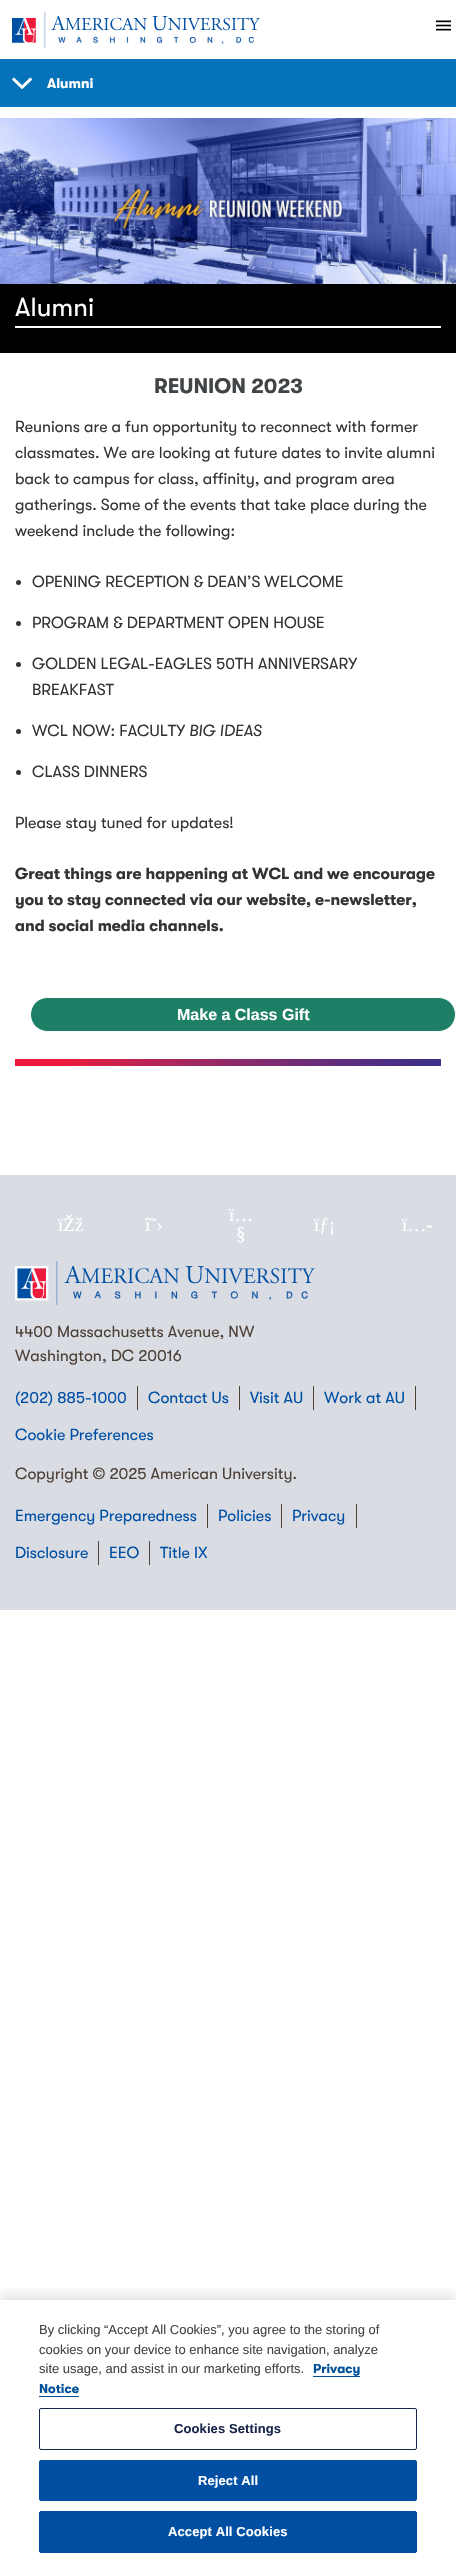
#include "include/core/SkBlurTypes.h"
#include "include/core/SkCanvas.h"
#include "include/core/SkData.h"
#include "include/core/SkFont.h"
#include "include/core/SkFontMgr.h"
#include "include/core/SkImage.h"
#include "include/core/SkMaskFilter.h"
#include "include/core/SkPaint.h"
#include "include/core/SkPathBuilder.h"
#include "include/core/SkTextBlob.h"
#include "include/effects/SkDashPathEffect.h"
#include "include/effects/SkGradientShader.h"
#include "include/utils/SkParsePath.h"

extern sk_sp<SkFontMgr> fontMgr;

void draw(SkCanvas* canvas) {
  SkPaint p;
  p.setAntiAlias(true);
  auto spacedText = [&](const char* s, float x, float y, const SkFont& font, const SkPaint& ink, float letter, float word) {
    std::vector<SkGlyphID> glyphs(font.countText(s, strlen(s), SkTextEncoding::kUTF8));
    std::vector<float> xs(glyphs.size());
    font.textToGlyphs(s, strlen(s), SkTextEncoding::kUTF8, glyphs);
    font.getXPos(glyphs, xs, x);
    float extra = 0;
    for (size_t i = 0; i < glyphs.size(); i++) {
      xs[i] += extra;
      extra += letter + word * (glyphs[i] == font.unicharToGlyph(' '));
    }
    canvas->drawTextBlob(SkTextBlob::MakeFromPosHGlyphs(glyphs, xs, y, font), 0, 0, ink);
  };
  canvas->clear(SK_ColorWHITE);
  canvas->drawImageRect(SkImages::DeferredFromEncodedData(SkData::MakeFromFileName("images/1.png")), SkRect::MakeLTRB(12, 11, 260, 49), SkSamplingOptions());
  canvas->drawImageRect(SkImages::DeferredFromEncodedData(SkData::MakeFromFileName("images/2.png")), SkRect::MakeLTRB(436, 20, 451, 31), SkSamplingOptions());
  p.setColor(SkColorSetRGB(6, 114, 185));
  canvas->drawRect(SkRect::MakeLTRB(0, 59, 456, 107), p);
  canvas->drawImageRect(SkImages::DeferredFromEncodedData(SkData::MakeFromFileName("images/3.png")), SkRect::MakeLTRB(12, 77, 33, 90), SkSamplingOptions());
  canvas->drawImageRect(SkImages::DeferredFromEncodedData(SkData::MakeFromFileName("images/4.png")), SkRect::MakeLTRB(0, 118, 456, 284), SkSamplingOptions());
  p.setColor(SK_ColorBLACK);
  canvas->drawRect(SkRect::MakeLTRB(0, 284, 456, 353), p);
  p.setColor(SK_ColorWHITE);
  canvas->drawRect(SkRect::MakeLTRB(15, 326, 441, 328), p);
  p.setColor(SkColorSetRGB(52, 52, 52));
  canvas->drawCircle(18.5f, 582.5f, 2.5f, p);
  canvas->drawCircle(18.5f, 623.5f, 2.5f, p);
  canvas->drawCircle(18.5f, 664.5f, 2.5f, p);
  canvas->drawCircle(18.5f, 731.5f, 2.5f, p);
  canvas->drawCircle(18.5f, 772.5f, 2.5f, p);
  p.setColor(SkColorSetRGB(28, 127, 102));
  canvas->drawRoundRect(SkRect::MakeLTRB(30.5f, 997.5f, 455.5f, 1031.5f), 17, 17, p);
  p.setStyle(SkPaint::kStroke_Style);
  p.setStrokeWidth(1);
  p.setColor(SK_ColorWHITE);
  canvas->drawRoundRect(SkRect::MakeLTRB(30.5f, 997.5f, 455.5f, 1031.5f), 17, 17, p);
  canvas->drawImageRect(SkImages::DeferredFromEncodedData(SkData::MakeFromFileName("images/5.png")), SkRect::MakeLTRB(15, 1059, 441, 1066), SkSamplingOptions());
  p.setStyle(SkPaint::kFill_Style);
  p.setColor(SkColorSetRGB(217, 220, 227));
  canvas->drawRect(SkRect::MakeLTRB(0, 1175, 456, 1610), p);
  canvas->drawImageRect(SkImages::DeferredFromEncodedData(SkData::MakeFromFileName("images/6.png")), SkRect::MakeLTRB(15, 1261, 315, 1305), SkSamplingOptions());
  p.setColor(SkColorSetRGB(77, 64, 55));
  canvas->drawRect(SkRect::MakeLTRB(137, 1386, 138, 1410), p);
  canvas->drawRect(SkRect::MakeLTRB(239, 1386, 240, 1410), p);
  canvas->drawRect(SkRect::MakeLTRB(313, 1386, 314, 1410), p);
  canvas->drawRect(SkRect::MakeLTRB(415, 1386, 416, 1410), p);
  canvas->drawRect(SkRect::MakeLTRB(207, 1504, 208, 1528), p);
  canvas->drawRect(SkRect::MakeLTRB(281, 1504, 282, 1528), p);
  canvas->drawRect(SkRect::MakeLTRB(356, 1504, 357, 1528), p);
  canvas->drawRect(SkRect::MakeLTRB(98, 1541, 99, 1565), p);
  canvas->drawRect(SkRect::MakeLTRB(149, 1541, 150, 1565), p);
  canvas->save();
  canvas->clipRect(SkRect::MakeLTRB(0, 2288, 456, 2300));
  p.setColor(SkColorSetARGB(51, 0, 0, 0));
  p.setMaskFilter(SkMaskFilter::MakeBlur(kNormal_SkBlurStyle, 9));
  canvas->drawRect(SkRect::MakeLTRB(0, 2300, 456, 2563), p);
  p.setMaskFilter(nullptr);
  canvas->restore();
  p.setColor(SkColorSetRGB(0, 80, 153));
  canvas->drawRect(SkRect::MakeLTRB(313, 2376, 360, 2377), p);
  canvas->drawRect(SkRect::MakeLTRB(39, 2396, 79, 2397), p);
  p.setStyle(SkPaint::kStroke_Style);
  p.setColor(SkColorSetRGB(24, 36, 73));
  canvas->drawRoundRect(SkRect::MakeLTRB(39.5f, 2408.5f, 416.5f, 2449.5f), 1.5f, 1.5f, p);
  p.setStyle(SkPaint::kFill_Style);
  p.setColor(SkColorSetRGB(0, 79, 162));
  canvas->drawRoundRect(SkRect::MakeLTRB(39.5f, 2460.5f, 416.5f, 2500.5f), 1.5f, 1.5f, p);
  p.setStyle(SkPaint::kStroke_Style);
  canvas->drawRoundRect(SkRect::MakeLTRB(39.5f, 2460.5f, 416.5f, 2500.5f), 1.5f, 1.5f, p);
  p.setStyle(SkPaint::kFill_Style);
  canvas->drawRoundRect(SkRect::MakeLTRB(39.5f, 2511.5f, 416.5f, 2552.5f), 1.5f, 1.5f, p);
  p.setStyle(SkPaint::kStroke_Style);
  canvas->drawRoundRect(SkRect::MakeLTRB(39.5f, 2511.5f, 416.5f, 2552.5f), 1.5f, 1.5f, p);
  SkFont font1(fontMgr->matchFamilyStyle("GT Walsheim", SkFontStyle::Bold()), 14);
  font1.setSubpixel(true);
  p.setStyle(SkPaint::kFill_Style);
  p.setColor(SK_ColorWHITE);
  canvas->drawString("Alumni", 47, 88, font1, p);
  SkFont font2(fontMgr->matchFamilyStyle("GT Walsheim", SkFontStyle::Normal()), 26);
  font2.setSubpixel(true);
  spacedText("Alumni", 15, 316, font2, p, 0.1f, 0);
  SkFont font3(fontMgr->matchFamilyStyle("GT Walsheim", SkFontStyle::Bold()), 21);
  font3.setSubpixel(true);
  p.setColor(SkColorSetRGB(65, 69, 71));
  canvas->drawString("REUNION 2023", 154, 393, font3, p);
  SkFont font4(fontMgr->matchFamilyStyle("GT Walsheim", SkFontStyle::Normal()), 16);
  font4.setSubpixel(true);
  p.setColor(SkColorSetRGB(52, 52, 52));
  canvas->drawString("Reunions are a fun opportunity to reconnect with former", 15, 432, font4, p);
  canvas->drawString("classmates. We are looking at future dates to invite alumni", 15, 458, font4, p);
  canvas->drawString("back to campus for class, affinity, and program area", 15, 484, font4, p);
  canvas->drawString("gatherings. Some of the events that take place during the", 15, 510, font4, p);
  canvas->drawString("weekend include the following:", 15, 536, font4, p);
  canvas->drawString("OPENING RECEPTION & DEAN’S WELCOME", 32, 587, font4, p);
  canvas->drawString("PROGRAM & DEPARTMENT OPEN HOUSE", 32, 628, font4, p);
  canvas->drawString("GOLDEN LEGAL-EAGLES 50TH ANNIVERSARY", 32, 669, font4, p);
  canvas->drawString("BREAKFAST", 32, 695, font4, p);
  canvas->drawString("WCL NOW: FACULTY", 32, 736, font4, p);
  SkFont font5(fontMgr->matchFamilyStyle("GT Walsheim", SkFontStyle::Italic()), 16);
  font5.setSubpixel(true);
  canvas->drawString("BIG IDEAS", 189, 736, font5, p);
  canvas->drawString("CLASS DINNERS", 32, 777, font4, p);
  canvas->drawString("Please stay tuned for updates!", 15, 828, font4, p);
  SkFont font6(fontMgr->matchFamilyStyle("GT Walsheim", SkFontStyle::Bold()), 16);
  font6.setSubpixel(true);
  canvas->drawString("Great things are happening at WCL and we encourage", 15, 879, font6, p);
  canvas->drawString("you to stay connected via our website, e-newsletter,", 15, 905, font6, p);
  canvas->drawString("and social media channels.", 15, 931, font6, p);
  SkFont font7(fontMgr->matchFamilyStyle("Liberation Sans", SkFontStyle::Bold()), 16);
  font7.setSubpixel(true);
  p.setColor(SK_ColorWHITE);
  canvas->drawString("Make a Class Gift", 177, 1020, font7, p);
  SkFont font8(fontMgr->matchFamilyStyle("Liberation Serif", SkFontStyle::Normal()), 19);
  font8.setSubpixel(true);
  canvas->drawString("ïŽž", 58, 1231, font8, p);
  canvas->drawString("î˜›", 145, 1231, font8, p);
  canvas->drawString("ï…", 229, 1221, font8, p);
  canvas->drawString("§", 236, 1240, font8, p);
  canvas->drawString("ïƒ¡", 314, 1231, font8, p);
  canvas->drawString("ï…-", 402, 1231, font8, p);
  p.setColor(SkColorSetRGB(77, 64, 55));
  canvas->drawString("4400 Massachusetts Avenue, NW", 15, 1337, font4, p);
  canvas->drawString("Washington, DC 20016", 15, 1361, font4, p);
  p.setColor(SkColorSetRGB(0, 79, 164));
  canvas->drawString("(202) 885-1000", 15, 1403, font4, p);
  canvas->drawString("Contact Us", 148, 1403, font4, p);
  canvas->drawString("Visit AU", 250, 1403, font4, p);
  canvas->drawString("Work at AU", 324, 1403, font4, p);
  canvas->drawString("Cookie Preferences", 15, 1440, font4, p);
  p.setColor(SkColorSetRGB(77, 64, 55));
  canvas->drawString("Copyright © 2025 American University.", 15, 1479, font4, p);
  p.setColor(SkColorSetRGB(0, 79, 164));
  canvas->drawString("Emergency Preparedness", 15, 1521, font4, p);
  canvas->drawString("Policies", 218, 1521, font4, p);
  canvas->drawString("Privacy", 292, 1521, font4, p);
  canvas->drawString("Disclosure", 15, 1558, font4, p);
  canvas->drawString("EEO", 109, 1558, font4, p);
  canvas->drawString("Title IX", 160, 1558, font4, p);
  SkFont font9(fontMgr->matchFamilyStyle("Liberation Sans", SkFontStyle::Normal()), 13);
  font9.setSubpixel(true);
  p.setColor(SkColorSetRGB(65, 69, 71));
  canvas->drawString("By clicking “Accept All Cookies”, you agree to the storing of", 39, 2334, font9, p);
  canvas->drawString("cookies on your device to enhance site navigation, analyze", 39, 2354, font9, p);
  canvas->drawString("site usage, and assist in our marketing efforts.", 39, 2373, font9, p);
  SkFont font10(fontMgr->matchFamilyStyle("GT Walsheim", SkFontStyle::Bold()), 13);
  font10.setSubpixel(true);
  p.setColor(SkColorSetRGB(0, 80, 153));
  canvas->drawString("Privacy", 313, 2373, font10, p);
  canvas->drawString("Notice", 39, 2393, font10, p);
  SkFont font11(fontMgr->matchFamilyStyle("Liberation Sans", SkFontStyle::Bold()), 13);
  font11.setSubpixel(true);
  p.setColor(SkColorSetRGB(24, 36, 73));
  spacedText("Cookies Settings", 174, 2433, font11, p, 0.1f, 0);
  p.setColor(SK_ColorWHITE);
  spacedText("Reject All", 198, 2485, font11, p, 0.1f, 0);
  spacedText("Accept All Cookies", 168, 2536, font11, p, 0.1f, 0);
}
